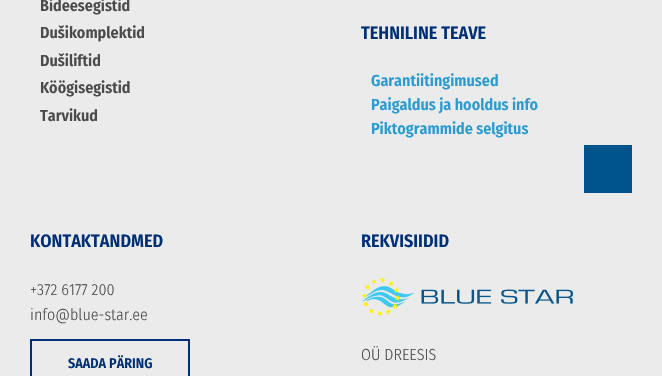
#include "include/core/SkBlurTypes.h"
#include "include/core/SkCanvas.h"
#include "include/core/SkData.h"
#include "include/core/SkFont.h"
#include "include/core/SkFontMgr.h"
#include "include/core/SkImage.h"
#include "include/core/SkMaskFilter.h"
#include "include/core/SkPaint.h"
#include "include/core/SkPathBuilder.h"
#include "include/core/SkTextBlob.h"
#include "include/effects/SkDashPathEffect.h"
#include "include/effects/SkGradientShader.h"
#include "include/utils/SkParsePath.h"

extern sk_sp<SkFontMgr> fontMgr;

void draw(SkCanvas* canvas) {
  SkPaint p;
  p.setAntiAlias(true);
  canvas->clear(SkColorSetRGB(235, 235, 235));
  p.setStyle(SkPaint::kStroke_Style);
  p.setStrokeWidth(2);
  p.setColor(SkColorSetRGB(0, 47, 122));
  canvas->drawRect(SkRect::MakeLTRB(31, 340, 189, 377), p);
  canvas->drawImageRect(SkImages::DeferredFromEncodedData(SkData::MakeFromFileName("images/1.png")), SkRect::MakeLTRB(361, 277, 573, 317), SkSamplingOptions());
  p.setStyle(SkPaint::kFill_Style);
  p.setColor(SkColorSetRGB(0, 84, 140));
  canvas->drawRect(SkRect::MakeLTRB(584, 145, 632, 193), p);
  SkFont font1(fontMgr->matchFamilyStyle("Fira Sans Condensed", SkFontStyle(600, SkFontStyle::kNormal_Width, SkFontStyle::kUpright_Slant)), 16);
  font1.setSubpixel(true);
  p.setColor(SkColorSetRGB(75, 75, 75));
  canvas->drawString("Bideesegistid", 40, 11, font1, p);
  canvas->drawString("Dušikomplektid", 40, 38, font1, p);
  canvas->drawString("Dušiliftid", 40, 66, font1, p);
  canvas->drawString("Köögisegistid", 40, 93, font1, p);
  canvas->drawString("Tarvikud", 40, 121, font1, p);
  SkFont font2(fontMgr->matchFamilyStyle("Fira Sans Condensed", SkFontStyle(600, SkFontStyle::kNormal_Width, SkFontStyle::kUpright_Slant)), 18);
  font2.setSubpixel(true);
  p.setColor(SkColorSetRGB(0, 47, 122));
  canvas->drawString("TEHNILINE TEAVE", 361, 39, font2, p);
  p.setColor(SkColorSetRGB(41, 155, 212));
  canvas->drawString("Garantiitingimused", 371, 86, font1, p);
  canvas->drawString("Paigaldus ja hooldus info", 371, 110, font1, p);
  canvas->drawString("Piktogrammide selgitus", 371, 134, font1, p);
  p.setColor(SkColorSetRGB(0, 47, 122));
  canvas->drawString("KONTAKTANDMED", 30, 247, font2, p);
  SkFont font3(fontMgr->matchFamilyStyle("Fira Sans Condensed", SkFontStyle(300, SkFontStyle::kNormal_Width, SkFontStyle::kUpright_Slant)), 16);
  font3.setSubpixel(true);
  p.setColor(SkColorSetRGB(75, 75, 75));
  canvas->drawString("+372 6177 200", 30, 295, font3, p);
  canvas->drawString("info@blue-star.ee", 30, 320, font3, p);
  SkFont font4(fontMgr->matchFamilyStyle("Fira Sans Condensed", SkFontStyle(600, SkFontStyle::kNormal_Width, SkFontStyle::kUpright_Slant)), 14);
  font4.setSubpixel(true);
  p.setColor(SkColorSetRGB(0, 47, 122));
  canvas->drawString("SAADA PÄRING", 68, 368, font4, p);
  canvas->drawString("REKVISIIDID", 361, 247, font2, p);
  p.setColor(SkColorSetRGB(75, 75, 75));
  canvas->drawString("OÜ DREESIS", 361, 360, font3, p);
}
